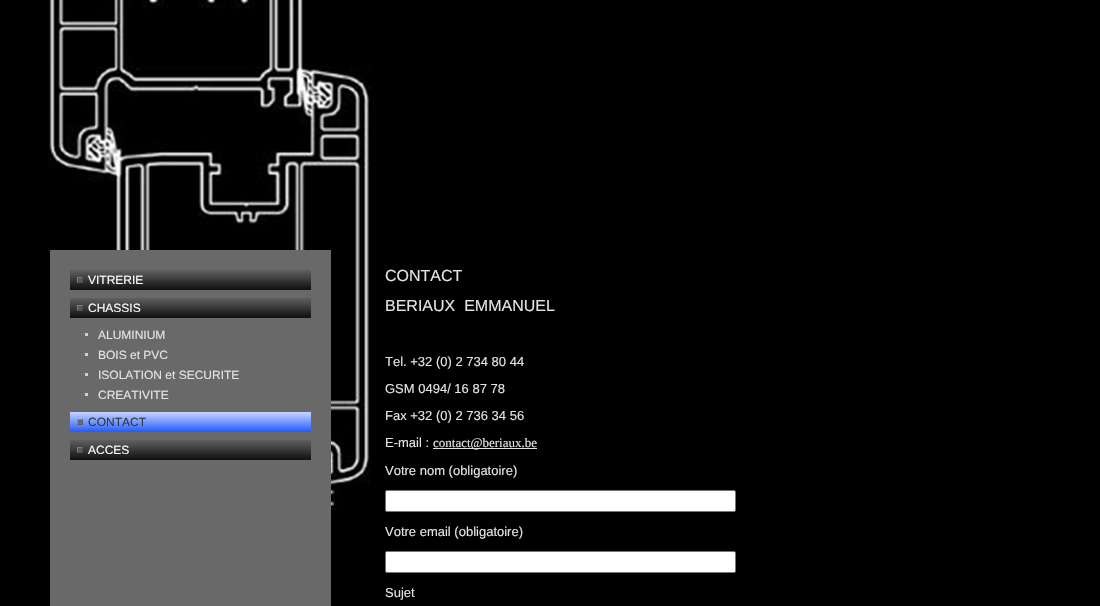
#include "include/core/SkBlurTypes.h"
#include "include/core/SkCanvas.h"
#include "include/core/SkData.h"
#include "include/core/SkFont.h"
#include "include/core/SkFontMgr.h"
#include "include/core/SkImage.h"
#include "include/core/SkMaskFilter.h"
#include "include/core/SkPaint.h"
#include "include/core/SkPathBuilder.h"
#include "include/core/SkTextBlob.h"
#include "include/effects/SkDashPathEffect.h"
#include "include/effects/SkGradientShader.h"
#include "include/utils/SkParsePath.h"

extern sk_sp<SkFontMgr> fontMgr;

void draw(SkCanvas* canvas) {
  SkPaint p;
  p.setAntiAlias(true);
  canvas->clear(SK_ColorBLACK);
  canvas->drawImageRect(SkImages::DeferredFromEncodedData(SkData::MakeFromFileName("images/1.png")), SkRect::MakeLTRB(47, 0, 371, 606), SkSamplingOptions());
  p.setColor(SkColorSetRGB(105, 105, 105));
  canvas->drawRect(SkRect::MakeLTRB(50, 250, 331, 606), p);
  canvas->drawImageRect(SkImages::DeferredFromEncodedData(SkData::MakeFromFileName("images/2.png")), SkRect::MakeLTRB(70, 270, 298, 290), SkSamplingOptions());
  canvas->drawImageRect(SkImages::DeferredFromEncodedData(SkData::MakeFromFileName("images/3.png")), SkRect::MakeLTRB(298, 270, 311, 290), SkSamplingOptions());
  canvas->drawImageRect(SkImages::DeferredFromEncodedData(SkData::MakeFromFileName("images/2.png")), SkRect::MakeLTRB(70, 298, 298, 318), SkSamplingOptions());
  canvas->drawImageRect(SkImages::DeferredFromEncodedData(SkData::MakeFromFileName("images/3.png")), SkRect::MakeLTRB(298, 298, 311, 318), SkSamplingOptions());
  p.setColor(SkColorSetRGB(205, 208, 208));
  canvas->drawRect(SkRect::MakeLTRB(85, 333, 88, 336), p);
  canvas->drawRect(SkRect::MakeLTRB(85, 353, 88, 356), p);
  canvas->drawRect(SkRect::MakeLTRB(85, 373, 88, 376), p);
  canvas->drawRect(SkRect::MakeLTRB(85, 393, 88, 396), p);
  canvas->drawImageRect(SkImages::DeferredFromEncodedData(SkData::MakeFromFileName("images/4.png")), SkRect::MakeLTRB(70, 412, 298, 432), SkSamplingOptions());
  canvas->drawImageRect(SkImages::DeferredFromEncodedData(SkData::MakeFromFileName("images/5.png")), SkRect::MakeLTRB(298, 412, 311, 432), SkSamplingOptions());
  canvas->drawImageRect(SkImages::DeferredFromEncodedData(SkData::MakeFromFileName("images/2.png")), SkRect::MakeLTRB(70, 440, 298, 460), SkSamplingOptions());
  canvas->drawImageRect(SkImages::DeferredFromEncodedData(SkData::MakeFromFileName("images/3.png")), SkRect::MakeLTRB(298, 440, 311, 460), SkSamplingOptions());
  p.setColor(SkColorSetRGB(223, 225, 226));
  canvas->drawRect(SkRect::MakeLTRB(433, 448, 537, 449), p);
  p.setColor(SK_ColorWHITE);
  canvas->drawRoundRect(SkRect::MakeLTRB(385.5f, 490.5f, 735.5f, 511.5f), 1.5f, 1.5f, p);
  p.setStyle(SkPaint::kStroke_Style);
  p.setStrokeWidth(1);
  p.setColor(SkColorSetRGB(118, 118, 118));
  canvas->drawRoundRect(SkRect::MakeLTRB(385.5f, 490.5f, 735.5f, 511.5f), 1.5f, 1.5f, p);
  p.setStyle(SkPaint::kFill_Style);
  p.setColor(SK_ColorWHITE);
  canvas->drawRoundRect(SkRect::MakeLTRB(385.5f, 551.5f, 735.5f, 572.5f), 1.5f, 1.5f, p);
  p.setStyle(SkPaint::kStroke_Style);
  p.setColor(SkColorSetRGB(118, 118, 118));
  canvas->drawRoundRect(SkRect::MakeLTRB(385.5f, 551.5f, 735.5f, 572.5f), 1.5f, 1.5f, p);
  SkFont font1(fontMgr->matchFamilyStyle("Liberation Sans", SkFontStyle::Normal()), 12);
  font1.setSubpixel(true);
  p.setStyle(SkPaint::kFill_Style);
  p.setColor(SkColorSetRGB(251, 253, 252));
  canvas->drawString("VITRERIE", 88, 284, font1, p);
  canvas->drawString("CHASSIS", 88, 312, font1, p);
  p.setColor(SkColorSetRGB(226, 228, 228));
  canvas->drawString("ALUMINIUM", 98, 339, font1, p);
  canvas->drawString("BOIS et PVC", 98, 359, font1, p);
  canvas->drawString("ISOLATION et SECURITE", 98, 379, font1, p);
  canvas->drawString("CREATIVITE", 98, 399, font1, p);
  p.setColor(SkColorSetRGB(51, 55, 56));
  canvas->drawString("CONTACT", 88, 426, font1, p);
  p.setColor(SkColorSetRGB(251, 253, 252));
  canvas->drawString("ACCES", 88, 454, font1, p);
  SkFont font2(fontMgr->matchFamilyStyle("Liberation Sans", SkFontStyle::Normal()), 16);
  font2.setSubpixel(true);
  p.setColor(SkColorSetRGB(226, 228, 228));
  canvas->drawString("CONTACT", 385, 281, font2, p);
  canvas->drawString("BERIAUX  EMMANUEL", 385, 311, font2, p);
  SkFont font3(fontMgr->matchFamilyStyle("Liberation Sans", SkFontStyle::Normal()), 13);
  font3.setSubpixel(true);
  canvas->drawString("Tel. +32 (0) 2 734 80 44", 385, 366, font3, p);
  canvas->drawString("GSM 0494/ 16 87 78", 385, 393, font3, p);
  canvas->drawString("Fax +32 (0) 2 736 34 56", 385, 420, font3, p);
  canvas->drawString("E-mail :", 385, 447, font3, p);
  SkFont font4(fontMgr->matchFamilyStyle("Liberation Serif", SkFontStyle::Normal()), 13);
  font4.setSubpixel(true);
  canvas->drawString("contact@beriaux.be", 433, 447, font4, p);
  canvas->drawString("Votre nom (obligatoire)", 385, 475, font3, p);
  canvas->drawString("Votre email (obligatoire)", 385, 536, font3, p);
  canvas->drawString("Sujet", 385, 597, font3, p);
}
